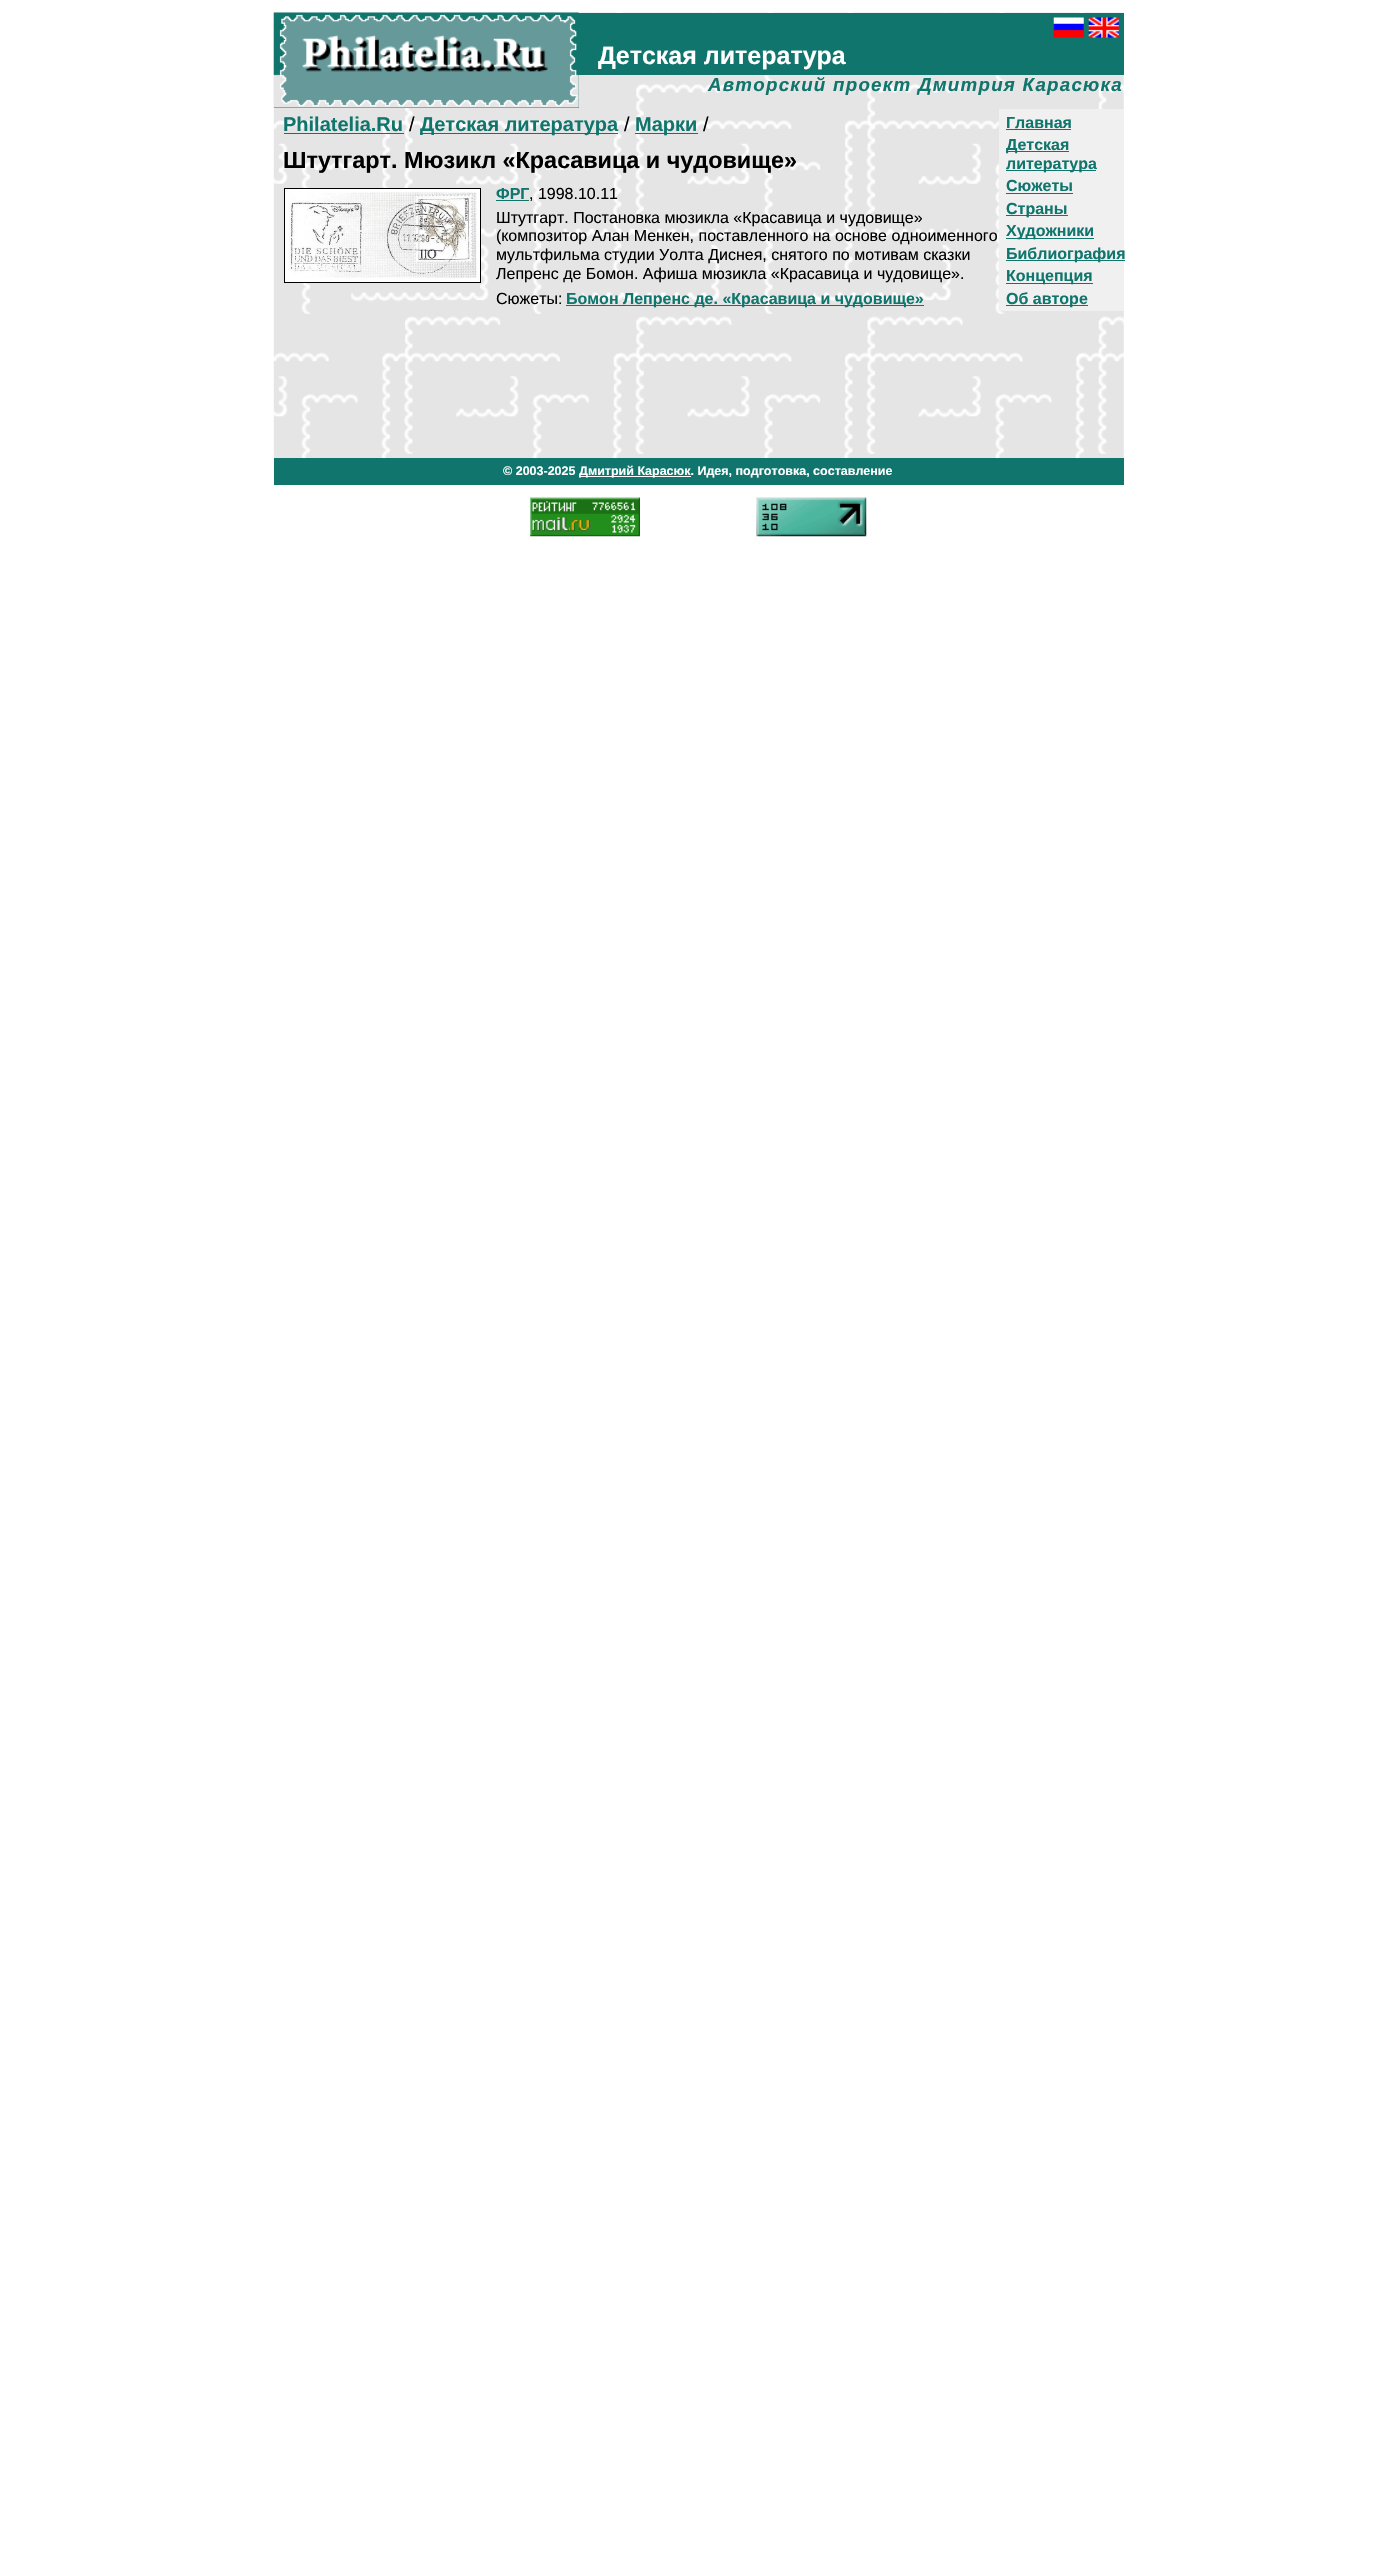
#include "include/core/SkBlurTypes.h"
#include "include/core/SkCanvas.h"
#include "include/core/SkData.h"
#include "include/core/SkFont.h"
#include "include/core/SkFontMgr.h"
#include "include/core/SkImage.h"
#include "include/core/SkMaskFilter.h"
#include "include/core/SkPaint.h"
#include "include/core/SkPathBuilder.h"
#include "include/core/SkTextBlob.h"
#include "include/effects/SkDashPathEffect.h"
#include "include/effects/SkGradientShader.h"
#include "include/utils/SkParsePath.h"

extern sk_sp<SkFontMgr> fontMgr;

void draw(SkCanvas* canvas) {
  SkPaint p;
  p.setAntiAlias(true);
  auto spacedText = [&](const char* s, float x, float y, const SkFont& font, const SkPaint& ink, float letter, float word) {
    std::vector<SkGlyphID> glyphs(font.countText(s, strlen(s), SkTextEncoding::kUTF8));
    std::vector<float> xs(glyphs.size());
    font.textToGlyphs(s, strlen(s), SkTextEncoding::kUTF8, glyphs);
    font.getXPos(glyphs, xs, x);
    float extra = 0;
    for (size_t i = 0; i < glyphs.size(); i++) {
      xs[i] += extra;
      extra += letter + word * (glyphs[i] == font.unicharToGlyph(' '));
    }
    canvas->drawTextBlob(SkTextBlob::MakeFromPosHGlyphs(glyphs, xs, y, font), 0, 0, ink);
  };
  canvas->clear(SK_ColorWHITE);
  canvas->drawImageRect(SkImages::DeferredFromEncodedData(SkData::MakeFromFileName("images/1.png")), SkRect::MakeLTRB(273, 12, 1124, 485), SkSamplingOptions());
  p.setColor(SkColorSetRGB(16, 117, 108));
  canvas->drawRect(SkRect::MakeLTRB(274, 13, 579, 108), p);
  canvas->drawImageRect(SkImages::DeferredFromEncodedData(SkData::MakeFromFileName("images/2.png")), SkRect::MakeLTRB(273, 12, 579, 108), SkSamplingOptions());
  canvas->drawImageRect(SkImages::DeferredFromEncodedData(SkData::MakeFromFileName("images/3.png")), SkRect::MakeLTRB(279, 14, 578, 107), SkSamplingOptions());
  canvas->drawRect(SkRect::MakeLTRB(579, 13, 1124, 75), p);
  canvas->drawImageRect(SkImages::DeferredFromEncodedData(SkData::MakeFromFileName("images/4.png")), SkRect::MakeLTRB(1053, 17, 1084, 38), SkSamplingOptions());
  canvas->drawImageRect(SkImages::DeferredFromEncodedData(SkData::MakeFromFileName("images/5.png")), SkRect::MakeLTRB(1088, 17, 1119, 38), SkSamplingOptions());
  canvas->drawRect(SkRect::MakeLTRB(284, 133, 404, 134), p);
  canvas->drawRect(SkRect::MakeLTRB(420, 133, 618, 134), p);
  canvas->drawRect(SkRect::MakeLTRB(635, 133, 698, 134), p);
  p.setColor(SkColorSetRGB(240, 240, 240));
  canvas->drawRect(SkRect::MakeLTRB(999, 109, 1124, 311), p);
  p.setColor(SkColorSetRGB(16, 117, 108));
  canvas->drawRect(SkRect::MakeLTRB(1006, 129, 1071, 130), p);
  canvas->drawRect(SkRect::MakeLTRB(1006, 151, 1069, 152), p);
  canvas->drawRect(SkRect::MakeLTRB(1006, 170, 1096, 171), p);
  canvas->drawRect(SkRect::MakeLTRB(1006, 193, 1073, 194), p);
  canvas->drawRect(SkRect::MakeLTRB(1006, 215, 1068, 216), p);
  canvas->drawRect(SkRect::MakeLTRB(1006, 238, 1094, 239), p);
  canvas->drawRect(SkRect::MakeLTRB(1006, 260, 1125, 261), p);
  canvas->drawRect(SkRect::MakeLTRB(1006, 283, 1093, 284), p);
  canvas->drawRect(SkRect::MakeLTRB(1006, 305, 1088, 306), p);
  p.setColor(SK_ColorWHITE);
  canvas->drawRect(SkRect::MakeLTRB(284.5f, 188.5f, 480.5f, 282.5f), p);
  p.setStyle(SkPaint::kStroke_Style);
  p.setStrokeWidth(1);
  p.setColor(SK_ColorBLACK);
  canvas->drawRect(SkRect::MakeLTRB(284.5f, 188.5f, 480.5f, 282.5f), p);
  canvas->drawImageRect(SkImages::DeferredFromEncodedData(SkData::MakeFromFileName("images/6.png")), SkRect::MakeLTRB(289, 192, 477, 278), SkSamplingOptions());
  p.setStyle(SkPaint::kFill_Style);
  p.setColor(SkColorSetRGB(16, 117, 108));
  canvas->drawRect(SkRect::MakeLTRB(496, 200, 529, 201), p);
  canvas->drawRect(SkRect::MakeLTRB(566, 305, 924, 306), p);
  canvas->drawRect(SkRect::MakeLTRB(274, 458, 1124, 485), p);
  p.setColor(SK_ColorWHITE);
  canvas->drawRect(SkRect::MakeLTRB(579, 476, 691, 477), p);
  canvas->drawImageRect(SkImages::DeferredFromEncodedData(SkData::MakeFromFileName("images/7.png")), SkRect::MakeLTRB(530, 497, 640, 537), SkSamplingOptions());
  canvas->drawImageRect(SkImages::DeferredFromEncodedData(SkData::MakeFromFileName("images/8.png")), SkRect::MakeLTRB(756, 497, 867, 537), SkSamplingOptions());
  SkFont font1(fontMgr->matchFamilyStyle("Liberation Sans", SkFontStyle::Bold()), 25);
  font1.setSubpixel(true);
  canvas->drawString("Детская литература", 598, 64, font1, p);
  SkFont font2(fontMgr->matchFamilyStyle("Liberation Sans", SkFontStyle::BoldItalic()), 18.75f);
  font2.setSubpixel(true);
  p.setColor(SkColorSetRGB(16, 117, 108));
  spacedText("Авторский проект Дмитрия Карасюка", 708, 91, font2, p, 1.25f, 0);
  SkFont font3(fontMgr->matchFamilyStyle("Liberation Sans", SkFontStyle::Bold()), 20);
  font3.setSubpixel(true);
  canvas->drawString("Philatelia.Ru", 283, 131, font3, p);
  SkFont font4(fontMgr->matchFamilyStyle("Liberation Sans", SkFontStyle::Normal()), 20);
  font4.setSubpixel(true);
  p.setColor(SK_ColorBLACK);
  canvas->drawString("/", 409, 131, font4, p);
  p.setColor(SkColorSetRGB(16, 117, 108));
  canvas->drawString("Детская литература", 420, 131, font3, p);
  p.setColor(SK_ColorBLACK);
  canvas->drawString("/", 624, 131, font4, p);
  p.setColor(SkColorSetRGB(16, 117, 108));
  canvas->drawString("Марки", 635, 131, font3, p);
  p.setColor(SK_ColorBLACK);
  canvas->drawString("/", 703, 131, font4, p);
  SkFont font5(fontMgr->matchFamilyStyle("Liberation Sans", SkFontStyle::Bold()), 16);
  font5.setSubpixel(true);
  p.setColor(SkColorSetRGB(16, 117, 108));
  canvas->drawString("Главная", 1006, 128, font5, p);
  canvas->drawString("Детская", 1006, 150, font5, p);
  canvas->drawString("литература", 1006, 169, font5, p);
  canvas->drawString("Сюжеты", 1006, 191, font5, p);
  canvas->drawString("Страны", 1006, 214, font5, p);
  canvas->drawString("Художники", 1006, 236, font5, p);
  canvas->drawString("Библиография", 1006, 259, font5, p);
  canvas->drawString("Концепция", 1006, 281, font5, p);
  canvas->drawString("Об авторе", 1006, 304, font5, p);
  SkFont font6(fontMgr->matchFamilyStyle("Liberation Sans", SkFontStyle::Bold()), 23.4f);
  font6.setSubpixel(true);
  p.setColor(SK_ColorBLACK);
  canvas->drawString("Штутгарт. Мюзикл «Красавица и чудовище»", 283, 168, font6, p);
  p.setColor(SkColorSetRGB(16, 117, 108));
  canvas->drawString("ФРГ", 496, 199, font5, p);
  SkFont font7(fontMgr->matchFamilyStyle("Liberation Sans", SkFontStyle::Normal()), 16);
  font7.setSubpixel(true);
  p.setColor(SK_ColorBLACK);
  canvas->drawString(", 1998.10.11", 529, 199, font7, p);
  canvas->drawString("Штутгарт. Постановка мюзикла «Красавица и чудовище»", 496, 223, font7, p);
  canvas->drawString("(композитор Алан Менкен, поставленного на основе одноименного", 496, 241, font7, p);
  canvas->drawString("мультфильма студии Уолта Диснея, снятого по мотивам сказки", 496, 260, font7, p);
  canvas->drawString("Лепренс де Бомон. Афиша мюзикла «Красавица и чудовище».", 496, 279, font7, p);
  canvas->drawString("Сюжеты:", 496, 304, font7, p);
  p.setColor(SkColorSetRGB(16, 117, 108));
  canvas->drawString("Бомон Лепренс де. «Красавица и чудовище»", 566, 304, font5, p);
  SkFont font8(fontMgr->matchFamilyStyle("Liberation Sans", SkFontStyle::Bold()), 12.5f);
  font8.setSubpixel(true);
  p.setColor(SK_ColorWHITE);
  canvas->drawString("© 2003-2025", 503, 475, font8, p);
  canvas->drawString("Дмитрий Карасюк. Идея, подготовка, составление", 579, 475, font8, p);
}
